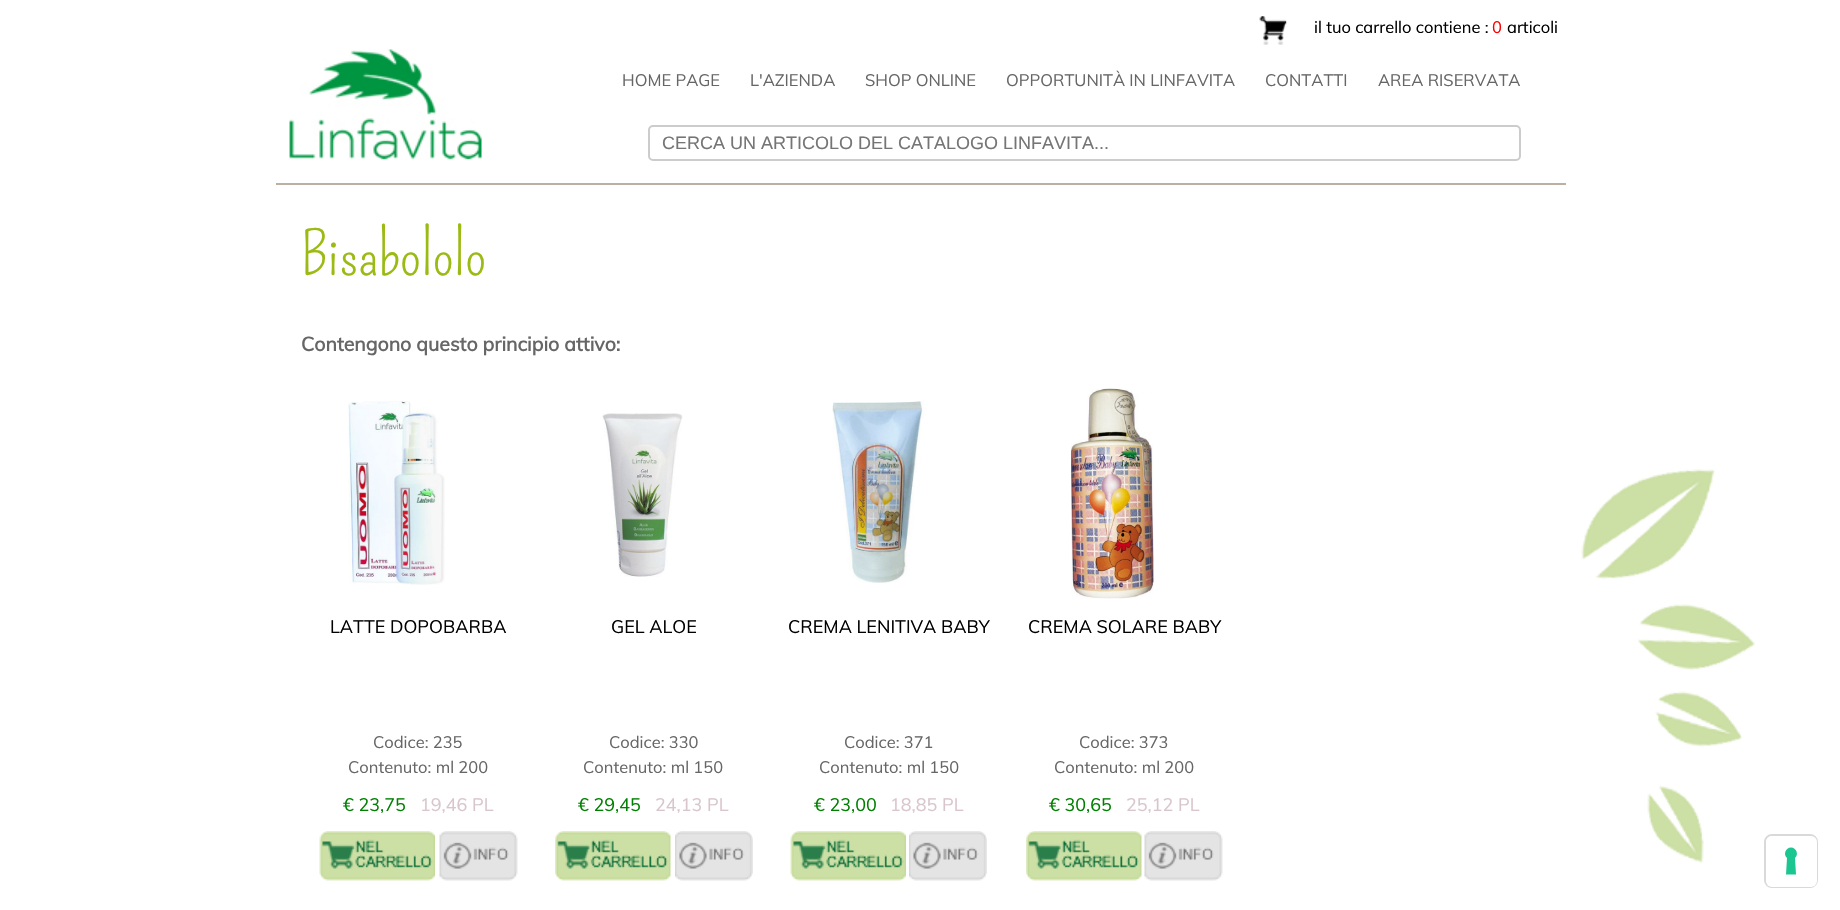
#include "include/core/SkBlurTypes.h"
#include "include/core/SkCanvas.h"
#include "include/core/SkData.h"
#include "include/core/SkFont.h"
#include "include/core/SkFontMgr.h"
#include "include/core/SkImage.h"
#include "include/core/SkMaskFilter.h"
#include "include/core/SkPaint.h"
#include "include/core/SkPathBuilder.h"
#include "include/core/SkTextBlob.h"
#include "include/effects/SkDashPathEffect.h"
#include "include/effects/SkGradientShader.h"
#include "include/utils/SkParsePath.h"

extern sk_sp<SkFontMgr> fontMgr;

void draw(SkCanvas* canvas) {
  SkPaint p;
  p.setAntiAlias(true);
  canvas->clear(SK_ColorWHITE);
  canvas->drawImageRect(SkImages::DeferredFromEncodedData(SkData::MakeFromFileName("images/1.png")), SkRect::MakeLTRB(1581, 469, 1755, 863), SkSamplingOptions());
  p.setColor(SkColorSetRGB(188, 175, 163));
  canvas->drawRect(SkRect::MakeLTRB(276, 183, 1566, 185), p);
  canvas->drawImageRect(SkImages::DeferredFromEncodedData(SkData::MakeFromFileName("images/2.png")), SkRect::MakeLTRB(1259, 16, 1287, 45), SkSamplingOptions());
  canvas->drawImageRect(SkImages::DeferredFromEncodedData(SkData::MakeFromFileName("images/3.png")), SkRect::MakeLTRB(289, 49, 482, 160), SkSamplingOptions());
  p.setStyle(SkPaint::kStroke_Style);
  p.setStrokeWidth(2);
  p.setColor(SkColorSetRGB(204, 204, 204));
  canvas->drawRoundRect(SkRect::MakeLTRB(649, 126, 1520, 160), 4, 4, p);
  canvas->drawImageRect(SkImages::DeferredFromEncodedData(SkData::MakeFromFileName("images/4.png")), SkRect::MakeLTRB(348, 401, 445, 585), SkSamplingOptions());
  canvas->drawImageRect(SkImages::DeferredFromEncodedData(SkData::MakeFromFileName("images/5.png")), SkRect::MakeLTRB(319, 831, 435, 881), SkSamplingOptions());
  canvas->drawImageRect(SkImages::DeferredFromEncodedData(SkData::MakeFromFileName("images/6.png")), SkRect::MakeLTRB(439, 831, 518, 881), SkSamplingOptions());
  canvas->drawImageRect(SkImages::DeferredFromEncodedData(SkData::MakeFromFileName("images/7.png")), SkRect::MakeLTRB(602, 413, 683, 577), SkSamplingOptions());
  canvas->drawImageRect(SkImages::DeferredFromEncodedData(SkData::MakeFromFileName("images/8.png")), SkRect::MakeLTRB(555, 831, 671, 881), SkSamplingOptions());
  canvas->drawImageRect(SkImages::DeferredFromEncodedData(SkData::MakeFromFileName("images/9.png")), SkRect::MakeLTRB(675, 831, 753, 881), SkSamplingOptions());
  canvas->drawImageRect(SkImages::DeferredFromEncodedData(SkData::MakeFromFileName("images/10.png")), SkRect::MakeLTRB(832, 401, 927, 583), SkSamplingOptions());
  canvas->drawImageRect(SkImages::DeferredFromEncodedData(SkData::MakeFromFileName("images/11.png")), SkRect::MakeLTRB(790, 831, 906, 881), SkSamplingOptions());
  canvas->drawImageRect(SkImages::DeferredFromEncodedData(SkData::MakeFromFileName("images/9.png")), SkRect::MakeLTRB(909, 831, 987, 881), SkSamplingOptions());
  canvas->drawImageRect(SkImages::DeferredFromEncodedData(SkData::MakeFromFileName("images/12.png")), SkRect::MakeLTRB(1071, 388, 1154, 599), SkSamplingOptions());
  canvas->drawImageRect(SkImages::DeferredFromEncodedData(SkData::MakeFromFileName("images/13.png")), SkRect::MakeLTRB(1026, 831, 1142, 881), SkSamplingOptions());
  canvas->drawImageRect(SkImages::DeferredFromEncodedData(SkData::MakeFromFileName("images/14.png")), SkRect::MakeLTRB(1144, 831, 1223, 881), SkSamplingOptions());
  p.setColor(SkColorSetRGB(217, 217, 217));
  canvas->drawRoundRect(SkRect::MakeLTRB(1765, 835, 1817, 887), 7, 7, p);
  p.setStyle(SkPaint::kFill_Style);
  p.setColor(SK_ColorWHITE);
  canvas->drawRoundRect(SkRect::MakeLTRB(1766, 836, 1817, 887), 6, 6, p);
  p.setColor(SkColorSetRGB(28, 198, 145));
  canvas->drawPath(SkPathBuilder(SkPathFillType::kEvenOdd).moveTo(1791, 847.5f).cubicTo(1796.5f, 847.5f, 1799, 854.5f, 1795, 858).lineTo(1796, 874.5f).lineTo(1786, 874.5f).lineTo(1787, 858).cubicTo(1783, 854.5f, 1785.5f, 847.5f, 1791, 847.5f).close().detach(), p);
  SkFont font1(fontMgr->matchFamilyStyle("Muli", SkFontStyle::Normal()), 16.5f);
  font1.setSubpixel(true);
  p.setColor(SK_ColorBLACK);
  canvas->drawString("il tuo carrello contiene :", 1314, 33, font1, p);
  p.setColor(SkColorSetRGB(255, 0, 0));
  canvas->drawString("0", 1492, 33, font1, p);
  p.setColor(SK_ColorBLACK);
  canvas->drawString("articoli", 1507, 33, font1, p);
  p.setColor(SkColorSetRGB(102, 102, 102));
  canvas->drawString("HOME PAGE", 622, 86, font1, p);
  canvas->drawString("L'AZIENDA", 750, 86, font1, p);
  canvas->drawString("SHOP ONLINE", 865, 86, font1, p);
  canvas->drawString("OPPORTUNITÀ IN LINFAVITA", 1006, 86, font1, p);
  canvas->drawString("CONTATTI", 1265, 86, font1, p);
  canvas->drawString("AREA RISERVATA", 1378, 86, font1, p);
  SkFont font2(fontMgr->matchFamilyStyle("Liberation Sans", SkFontStyle::Normal()), 18);
  font2.setSubpixel(true);
  p.setColor(SkColorSetRGB(117, 117, 117));
  canvas->drawString("CERCA UN ARTICOLO DEL CATALOGO LINFAVITA...", 662, 149, font2, p);
  SkFont font3(fontMgr->matchFamilyStyle("Pompiere", SkFontStyle::Normal()), 60);
  font3.setSubpixel(true);
  p.setColor(SkColorSetRGB(155, 186, 19));
  canvas->drawString("Bisabololo", 301, 275, font3, p);
  SkFont font4(fontMgr->matchFamilyStyle("Muli", SkFontStyle::Bold()), 19.5f);
  font4.setSubpixel(true);
  p.setColor(SkColorSetRGB(102, 102, 102));
  canvas->drawString("Contengono questo principio attivo:", 301, 351, font4, p);
  SkFont font5(fontMgr->matchFamilyStyle("Muli", SkFontStyle::Normal()), 18);
  font5.setSubpixel(true);
  p.setColor(SK_ColorBLACK);
  canvas->drawString("LATTE DOPOBARBA", 330, 633, font5, p);
  p.setColor(SkColorSetRGB(102, 102, 102));
  canvas->drawString("Codice: 235", 373, 748, font1, p);
  canvas->drawString("Contenuto: ml 200", 348, 773, font1, p);
  p.setColor(SkColorSetRGB(0, 128, 0));
  canvas->drawString("€ 23,75", 343, 811, font5, p);
  p.setColor(SkColorSetRGB(217, 198, 205));
  canvas->drawString("19,46 PL", 420, 811, font5, p);
  p.setColor(SK_ColorBLACK);
  canvas->drawString("GEL ALOE", 611, 633, font5, p);
  p.setColor(SkColorSetRGB(102, 102, 102));
  canvas->drawString("Codice: 330", 609, 748, font1, p);
  canvas->drawString("Contenuto: ml 150", 583, 773, font1, p);
  p.setColor(SkColorSetRGB(0, 128, 0));
  canvas->drawString("€ 29,45", 578, 811, font5, p);
  p.setColor(SkColorSetRGB(217, 198, 205));
  canvas->drawString("24,13 PL", 655, 811, font5, p);
  p.setColor(SK_ColorBLACK);
  canvas->drawString("CREMA LENITIVA BABY", 788, 633, font5, p);
  p.setColor(SkColorSetRGB(102, 102, 102));
  canvas->drawString("Codice: 371", 844, 748, font1, p);
  canvas->drawString("Contenuto: ml 150", 819, 773, font1, p);
  p.setColor(SkColorSetRGB(0, 128, 0));
  canvas->drawString("€ 23,00", 814, 811, font5, p);
  p.setColor(SkColorSetRGB(217, 198, 205));
  canvas->drawString("18,85 PL", 890, 811, font5, p);
  p.setColor(SK_ColorBLACK);
  canvas->drawString("CREMA SOLARE BABY", 1028, 633, font5, p);
  p.setColor(SkColorSetRGB(102, 102, 102));
  canvas->drawString("Codice: 373", 1079, 748, font1, p);
  canvas->drawString("Contenuto: ml 200", 1054, 773, font1, p);
  p.setColor(SkColorSetRGB(0, 128, 0));
  canvas->drawString("€ 30,65", 1049, 811, font5, p);
  p.setColor(SkColorSetRGB(217, 198, 205));
  canvas->drawString("25,12 PL", 1126, 811, font5, p);
}
